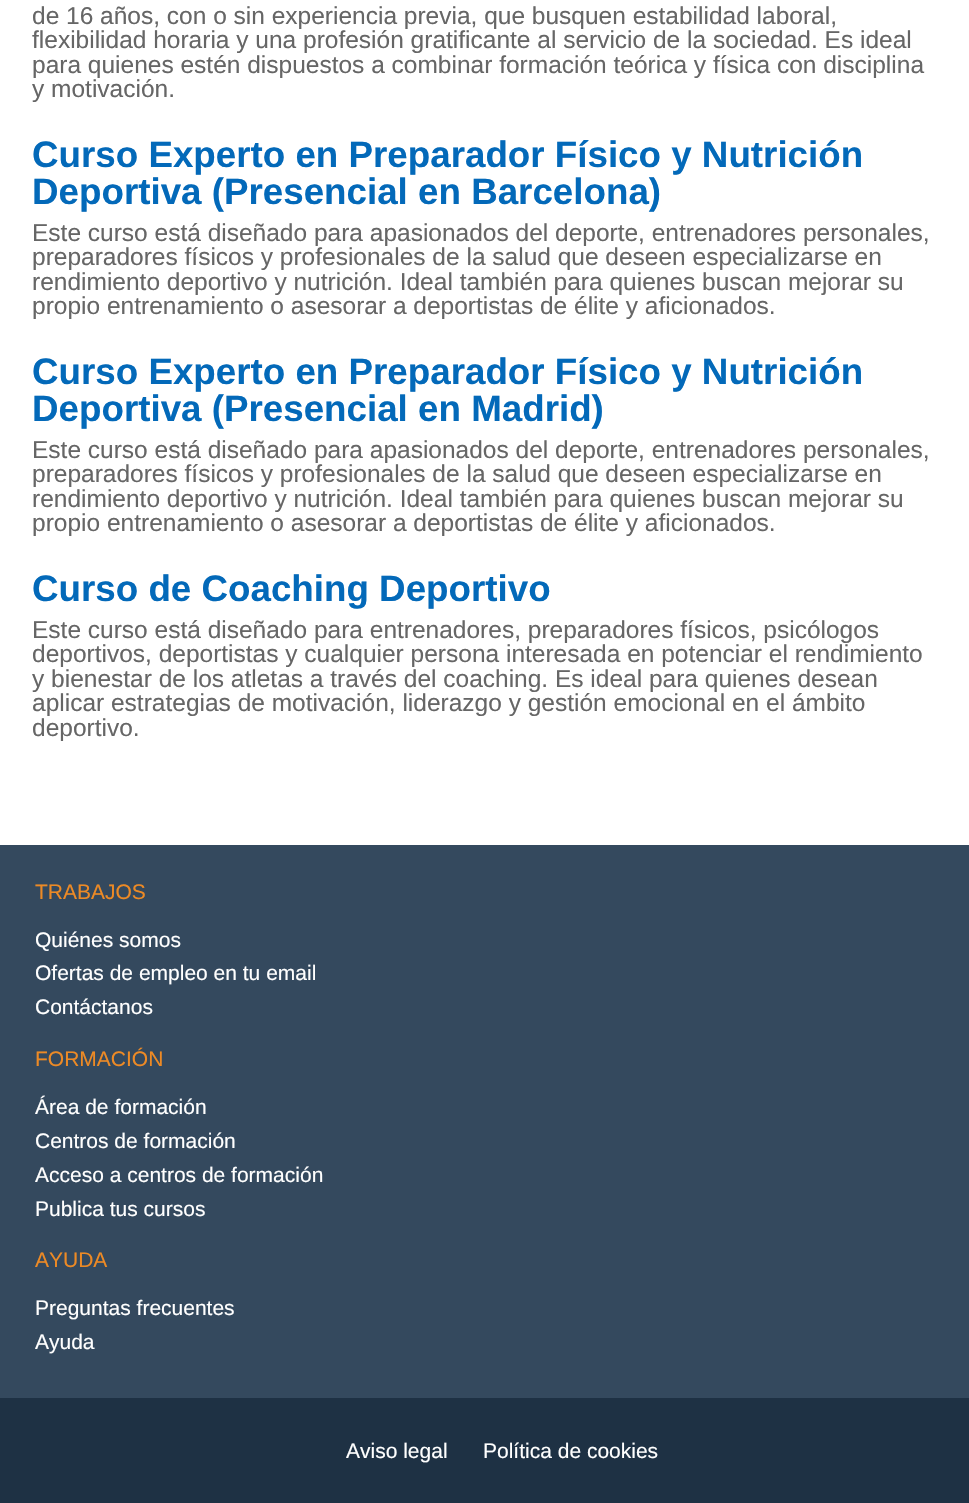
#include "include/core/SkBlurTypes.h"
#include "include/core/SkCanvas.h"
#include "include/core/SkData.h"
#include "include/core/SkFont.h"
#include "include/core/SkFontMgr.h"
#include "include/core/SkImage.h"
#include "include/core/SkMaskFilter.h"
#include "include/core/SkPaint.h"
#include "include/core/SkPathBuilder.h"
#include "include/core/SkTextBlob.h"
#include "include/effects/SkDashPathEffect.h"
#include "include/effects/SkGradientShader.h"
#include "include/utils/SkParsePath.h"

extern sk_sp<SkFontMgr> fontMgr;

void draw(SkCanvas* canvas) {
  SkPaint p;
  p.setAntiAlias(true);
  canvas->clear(SK_ColorWHITE);
  p.setColor(SkColorSetRGB(52, 73, 94));
  canvas->drawRect(SkRect::MakeLTRB(0, 845, 969, 1398), p);
  p.setColor(SkColorSetRGB(30, 49, 68));
  canvas->drawRect(SkRect::MakeLTRB(0, 1398, 969, 1503), p);
  SkFont font1(fontMgr->matchFamilyStyle("Liberation Sans", SkFontStyle::Normal()), 24.5f);
  font1.setSubpixel(true);
  p.setColor(SkColorSetRGB(102, 102, 102));
  canvas->drawString("de 16 años, con o sin experiencia previa, que busquen estabilidad laboral,", 32, 24, font1, p);
  canvas->drawString("flexibilidad horaria y una profesión gratificante al servicio de la sociedad. Es ideal", 32, 48, font1, p);
  canvas->drawString("para quienes estén dispuestos a combinar formación teórica y física con disciplina", 32, 73, font1, p);
  canvas->drawString("y motivación.", 32, 97, font1, p);
  SkFont font2(fontMgr->matchFamilyStyle("Liberation Sans", SkFontStyle::Bold()), 36.75f);
  font2.setSubpixel(true);
  p.setColor(SkColorSetRGB(3, 105, 185));
  canvas->drawString("Curso Experto en Preparador Físico y Nutrición", 32, 167, font2, p);
  canvas->drawString("Deportiva (Presencial en Barcelona)", 32, 204, font2, p);
  p.setColor(SkColorSetRGB(102, 102, 102));
  canvas->drawString("Este curso está diseñado para apasionados del deporte, entrenadores personales,", 32, 241, font1, p);
  canvas->drawString("preparadores físicos y profesionales de la salud que deseen especializarse en", 32, 265, font1, p);
  canvas->drawString("rendimiento deportivo y nutrición. Ideal también para quienes buscan mejorar su", 32, 290, font1, p);
  canvas->drawString("propio entrenamiento o asesorar a deportistas de élite y aficionados.", 32, 314, font1, p);
  p.setColor(SkColorSetRGB(3, 105, 185));
  canvas->drawString("Curso Experto en Preparador Físico y Nutrición", 32, 384, font2, p);
  canvas->drawString("Deportiva (Presencial en Madrid)", 32, 421, font2, p);
  p.setColor(SkColorSetRGB(102, 102, 102));
  canvas->drawString("Este curso está diseñado para apasionados del deporte, entrenadores personales,", 32, 458, font1, p);
  canvas->drawString("preparadores físicos y profesionales de la salud que deseen especializarse en", 32, 482, font1, p);
  canvas->drawString("rendimiento deportivo y nutrición. Ideal también para quienes buscan mejorar su", 32, 507, font1, p);
  canvas->drawString("propio entrenamiento o asesorar a deportistas de élite y aficionados.", 32, 531, font1, p);
  p.setColor(SkColorSetRGB(3, 105, 185));
  canvas->drawString("Curso de Coaching Deportivo", 32, 601, font2, p);
  p.setColor(SkColorSetRGB(102, 102, 102));
  canvas->drawString("Este curso está diseñado para entrenadores, preparadores físicos, psicólogos", 32, 638, font1, p);
  canvas->drawString("deportivos, deportistas y cualquier persona interesada en potenciar el rendimiento", 32, 662, font1, p);
  canvas->drawString("y bienestar de los atletas a través del coaching. Es ideal para quienes desean", 32, 687, font1, p);
  canvas->drawString("aplicar estrategias de motivación, liderazgo y gestión emocional en el ámbito", 32, 711, font1, p);
  canvas->drawString("deportivo.", 32, 736, font1, p);
  SkFont font3(fontMgr->matchFamilyStyle("Liberation Sans", SkFontStyle::Normal()), 21);
  font3.setSubpixel(true);
  p.setColor(SkColorSetRGB(237, 138, 37));
  canvas->drawString("TRABAJOS", 35, 899, font3, p);
  p.setColor(SK_ColorWHITE);
  canvas->drawString("Quiénes somos", 35, 947, font3, p);
  canvas->drawString("Ofertas de empleo en tu email", 35, 980, font3, p);
  canvas->drawString("Contáctanos", 35, 1014, font3, p);
  p.setColor(SkColorSetRGB(237, 138, 37));
  canvas->drawString("FORMACIÓN", 35, 1066, font3, p);
  p.setColor(SK_ColorWHITE);
  canvas->drawString("Área de formación", 35, 1114, font3, p);
  canvas->drawString("Centros de formación", 35, 1148, font3, p);
  canvas->drawString("Acceso a centros de formación", 35, 1182, font3, p);
  canvas->drawString("Publica tus cursos", 35, 1216, font3, p);
  p.setColor(SkColorSetRGB(237, 138, 37));
  canvas->drawString("AYUDA", 35, 1267, font3, p);
  p.setColor(SK_ColorWHITE);
  canvas->drawString("Preguntas frecuentes", 35, 1315, font3, p);
  canvas->drawString("Ayuda", 35, 1349, font3, p);
  canvas->drawString("Aviso legal", 346, 1458, font3, p);
  canvas->drawString("Política de cookies", 483, 1458, font3, p);
}
